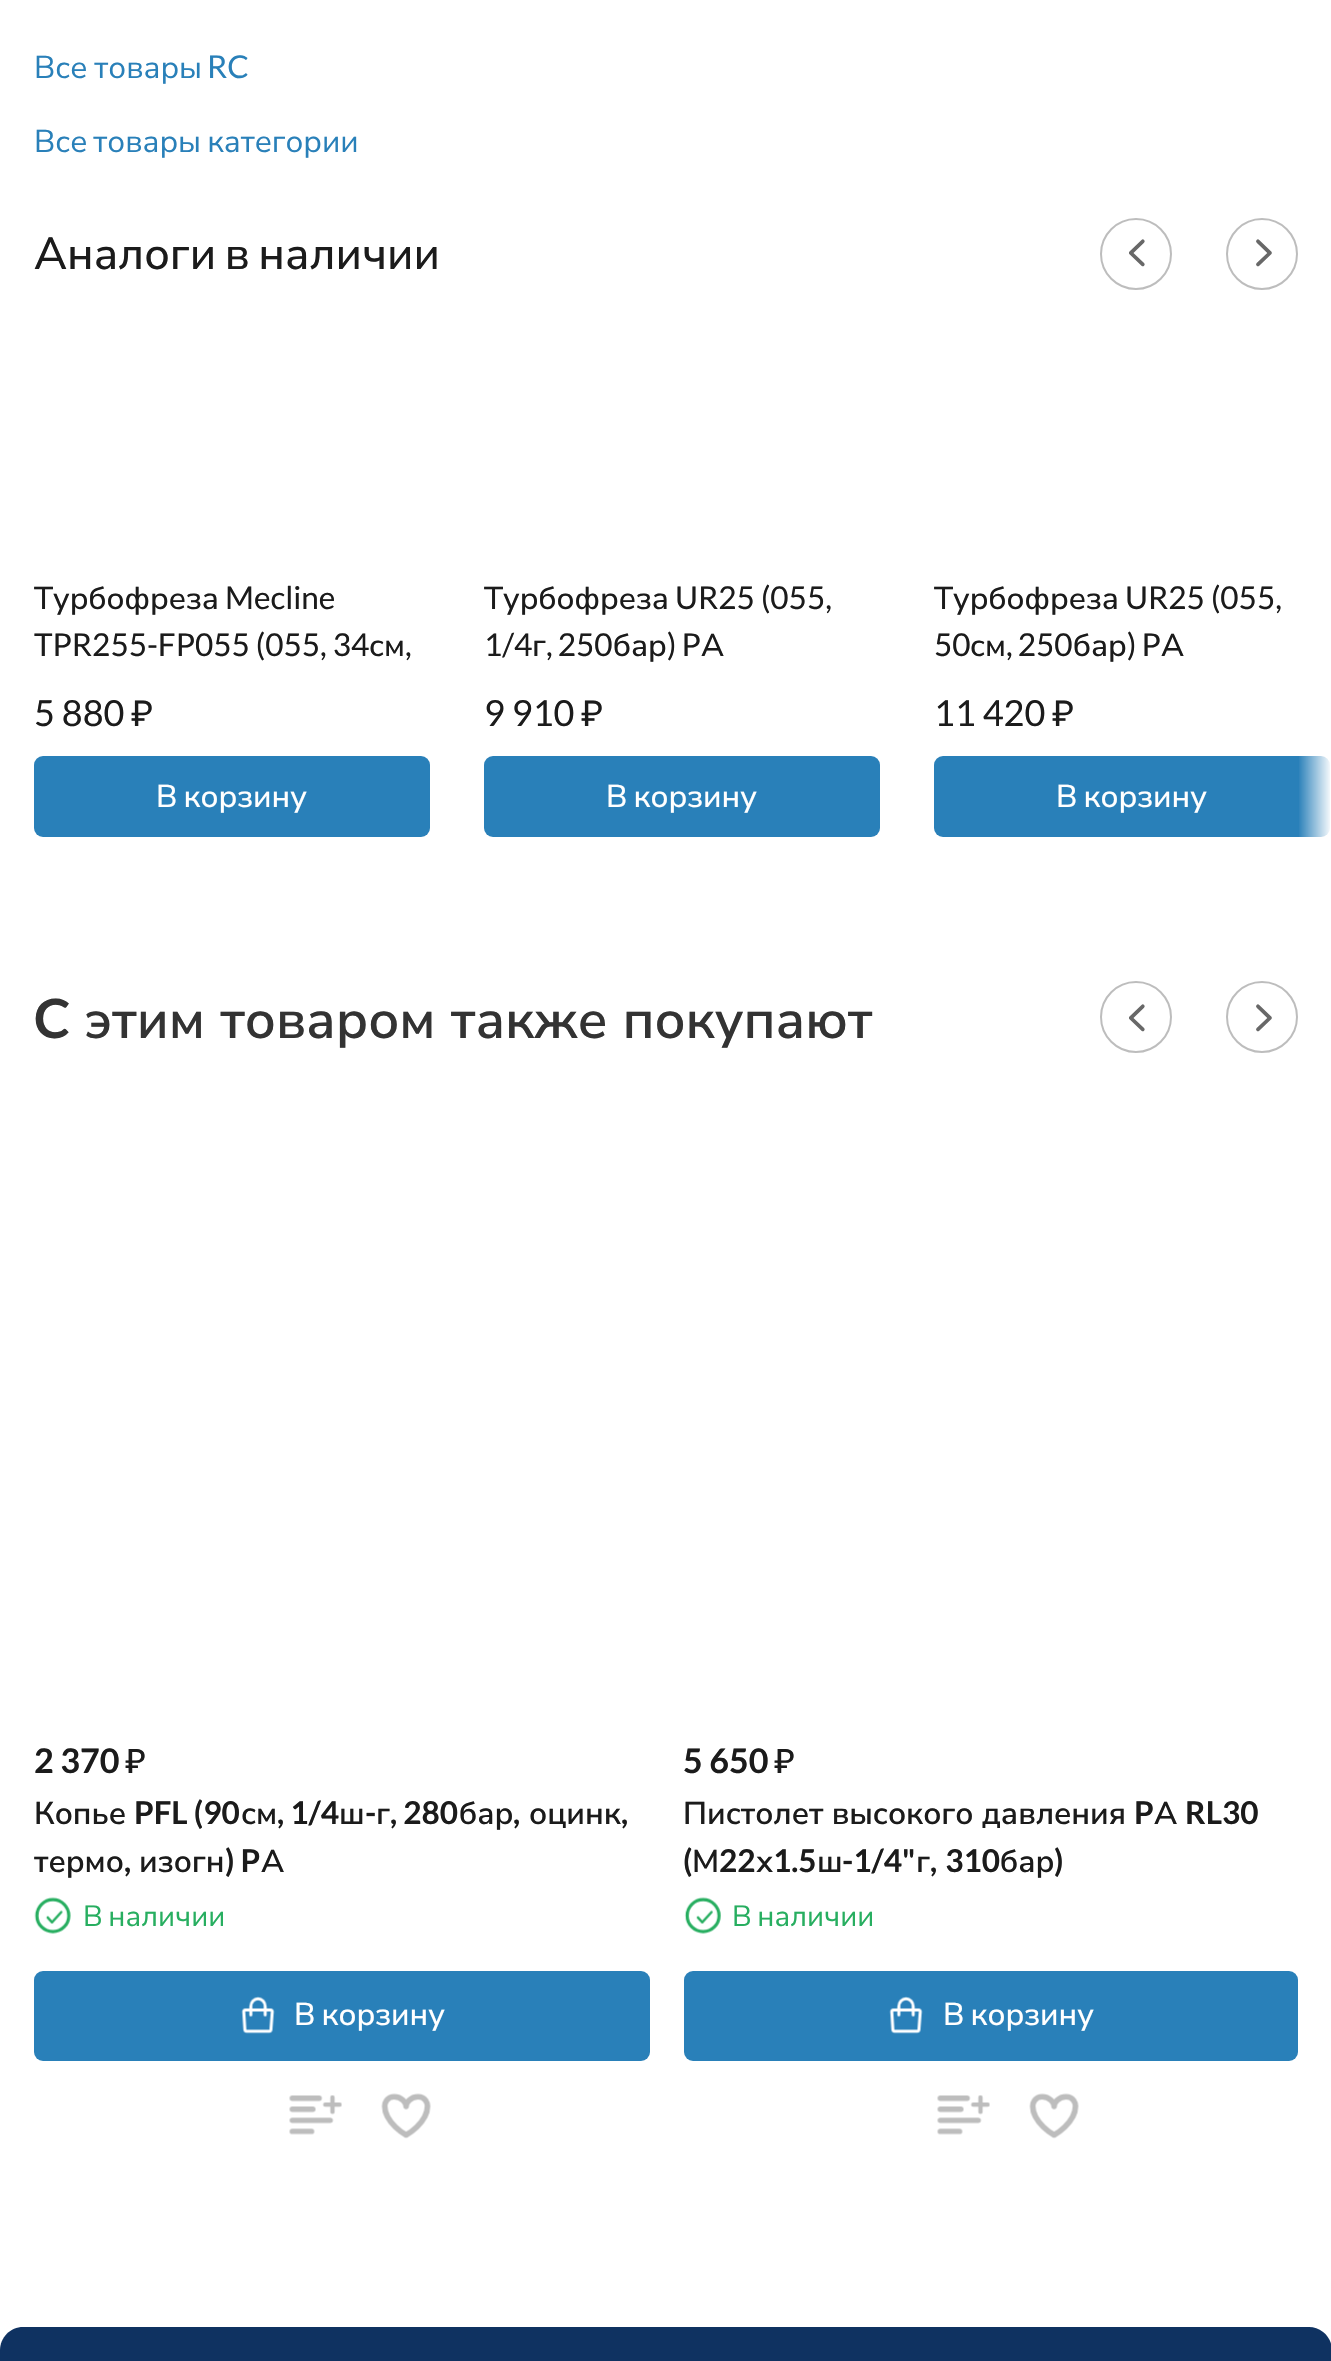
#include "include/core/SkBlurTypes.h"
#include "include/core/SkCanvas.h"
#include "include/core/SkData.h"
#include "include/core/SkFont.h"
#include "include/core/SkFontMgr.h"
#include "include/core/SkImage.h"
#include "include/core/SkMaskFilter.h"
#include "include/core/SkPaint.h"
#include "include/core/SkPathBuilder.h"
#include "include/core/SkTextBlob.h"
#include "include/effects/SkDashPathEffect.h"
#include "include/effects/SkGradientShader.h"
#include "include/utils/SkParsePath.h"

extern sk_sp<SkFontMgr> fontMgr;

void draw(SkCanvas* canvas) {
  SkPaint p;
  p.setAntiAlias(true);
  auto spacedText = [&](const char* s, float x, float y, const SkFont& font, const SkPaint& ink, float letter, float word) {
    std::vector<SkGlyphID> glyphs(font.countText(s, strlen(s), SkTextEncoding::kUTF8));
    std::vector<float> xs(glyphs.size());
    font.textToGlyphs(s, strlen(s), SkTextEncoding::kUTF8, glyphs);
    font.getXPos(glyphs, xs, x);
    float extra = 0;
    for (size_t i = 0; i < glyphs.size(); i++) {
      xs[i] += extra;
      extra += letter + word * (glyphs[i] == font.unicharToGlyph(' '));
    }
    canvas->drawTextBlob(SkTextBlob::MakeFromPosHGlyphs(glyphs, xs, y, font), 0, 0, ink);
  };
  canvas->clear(SK_ColorWHITE);
  p.setStyle(SkPaint::kStroke_Style);
  p.setStrokeWidth(2);
  p.setColor(SkColorSetRGB(189, 189, 189));
  canvas->drawCircle(1136, 254, 35, p);
  canvas->drawImageRect(SkImages::DeferredFromEncodedData(SkData::MakeFromFileName("images/1.png")), SkRect::MakeLTRB(1129, 239, 1145, 267), SkSamplingOptions());
  canvas->drawCircle(1262, 254, 35, p);
  canvas->drawImageRect(SkImages::DeferredFromEncodedData(SkData::MakeFromFileName("images/2.png")), SkRect::MakeLTRB(1256, 239, 1272, 267), SkSamplingOptions());
  p.setStyle(SkPaint::kFill_Style);
  p.setColor(SkColorSetRGB(41, 128, 185));
  canvas->drawRoundRect(SkRect::MakeLTRB(34, 756, 430, 837), 9, 9, p);
  canvas->drawRoundRect(SkRect::MakeLTRB(484, 756, 880, 837), 9, 9, p);
  canvas->drawRoundRect(SkRect::MakeLTRB(934, 756, 1330, 837), 9, 9, p);
  {
    const SkColor colors[] = {SkColorSetARGB(0, 255, 255, 255), SK_ColorWHITE};
    const float stops[] = {0, 1};
    const SkPoint ends[] = {{1298, 582}, {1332, 582}};
    p.setShader(SkGradientShader::MakeLinear(ends, colors, stops, 2, SkTileMode::kClamp));
    p.setAlpha(255);
  }
  canvas->drawRect(SkRect::MakeLTRB(1299, 756, 1330, 837), p);
  p.setStyle(SkPaint::kStroke_Style);
  p.setShader(nullptr);
  p.setColor(SkColorSetRGB(189, 189, 189));
  canvas->drawCircle(1136, 1017, 35, p);
  canvas->drawImageRect(SkImages::DeferredFromEncodedData(SkData::MakeFromFileName("images/1.png")), SkRect::MakeLTRB(1129, 1004, 1145, 1032), SkSamplingOptions());
  canvas->drawCircle(1262, 1017, 35, p);
  canvas->drawImageRect(SkImages::DeferredFromEncodedData(SkData::MakeFromFileName("images/2.png")), SkRect::MakeLTRB(1256, 1004, 1272, 1032), SkSamplingOptions());
  canvas->drawImageRect(SkImages::DeferredFromEncodedData(SkData::MakeFromFileName("images/3.png")), SkRect::MakeLTRB(34, 1897, 71, 1934), SkSamplingOptions());
  p.setStyle(SkPaint::kFill_Style);
  p.setColor(SkColorSetRGB(41, 128, 185));
  canvas->drawRoundRect(SkRect::MakeLTRB(34, 1971, 650, 2061), 9, 9, p);
  canvas->drawImageRect(SkImages::DeferredFromEncodedData(SkData::MakeFromFileName("images/4.png")), SkRect::MakeLTRB(241, 1996, 275, 2034), SkSamplingOptions());
  canvas->drawImageRect(SkImages::DeferredFromEncodedData(SkData::MakeFromFileName("images/5.png")), SkRect::MakeLTRB(289, 2095, 342, 2135), SkSamplingOptions());
  canvas->drawImageRect(SkImages::DeferredFromEncodedData(SkData::MakeFromFileName("images/6.png")), SkRect::MakeLTRB(381, 2093, 431, 2139), SkSamplingOptions());
  canvas->drawImageRect(SkImages::DeferredFromEncodedData(SkData::MakeFromFileName("images/7.png")), SkRect::MakeLTRB(684, 1897, 721, 1934), SkSamplingOptions());
  canvas->drawRoundRect(SkRect::MakeLTRB(684, 1971, 1298, 2061), 9, 9, p);
  canvas->drawImageRect(SkImages::DeferredFromEncodedData(SkData::MakeFromFileName("images/4.png")), SkRect::MakeLTRB(889, 1996, 923, 2034), SkSamplingOptions());
  canvas->drawImageRect(SkImages::DeferredFromEncodedData(SkData::MakeFromFileName("images/5.png")), SkRect::MakeLTRB(937, 2095, 990, 2135), SkSamplingOptions());
  canvas->drawImageRect(SkImages::DeferredFromEncodedData(SkData::MakeFromFileName("images/6.png")), SkRect::MakeLTRB(1029, 2093, 1079, 2139), SkSamplingOptions());
  p.setColor(SkColorSetRGB(15, 50, 97));
  canvas->drawPath(SkPathBuilder().moveTo(23, 2327).lineTo(1309, 2327).cubicTo(1321.5f, 2327, 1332, 2337.5f, 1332, 2350).lineTo(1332, 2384).lineTo(0, 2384).lineTo(0, 2350).cubicTo(0, 2337.5f, 10.5f, 2327, 23, 2327).close().detach(), p);
  SkFont font1(fontMgr->matchFamilyStyle("Nunito Sans", SkFontStyle::Normal()), 31.5f);
  font1.setSubpixel(true);
  p.setColor(SkColorSetRGB(41, 128, 185));
  spacedText("Все товары", 34, 78, font1, p, 0, -1);
  SkFont font2(fontMgr->matchFamilyStyle("Lato", SkFontStyle::Normal()), 31.5f);
  font2.setSubpixel(true);
  canvas->drawString("RC", 207, 78, font2, p);
  spacedText("Все товары категории", 34, 152, font1, p, 0, -2);
  SkFont font3(fontMgr->matchFamilyStyle("Nunito Sans", SkFontStyle(500, SkFontStyle::kNormal_Width, SkFontStyle::kUpright_Slant)), 45);
  font3.setSubpixel(true);
  p.setColor(SkColorSetRGB(27, 27, 27));
  spacedText("Аналоги в наличии", 34, 269, font3, p, 0, -3);
  SkFont font4(fontMgr->matchFamilyStyle("Nunito Sans", SkFontStyle(500, SkFontStyle::kNormal_Width, SkFontStyle::kUpright_Slant)), 31.5f);
  font4.setSubpixel(true);
  canvas->drawString("Турбофреза", 34, 609, font4, p);
  canvas->drawString("Mecline", 225, 609, font2, p);
  canvas->drawString("TPR255-FP055 (055, 34", 34, 656, font2, p);
  canvas->drawString("см", 369, 656, font4, p);
  canvas->drawString(",", 405, 656, font2, p);
  SkFont font5(fontMgr->matchFamilyStyle("Lato", SkFontStyle::Normal()), 36);
  font5.setSubpixel(true);
  canvas->drawString("5 880", 34, 726, font5, p);
  SkFont font6(fontMgr->matchFamilyStyle("Nunito Sans", SkFontStyle(500, SkFontStyle::kNormal_Width, SkFontStyle::kUpright_Slant)), 36);
  font6.setSubpixel(true);
  canvas->drawString("₽", 131, 726, font6, p);
  p.setColor(SK_ColorWHITE);
  spacedText("В корзину", 156, 807, font4, p, 0, -2);
  p.setColor(SkColorSetRGB(27, 27, 27));
  canvas->drawString("Турбофреза", 484, 609, font4, p);
  canvas->drawString("UR25 (055,", 675, 609, font2, p);
  canvas->drawString("1/4", 484, 656, font2, p);
  canvas->drawString("г", 532, 656, font4, p);
  spacedText(", 250", 546, 656, font2, p, 0, -1);
  canvas->drawString("бар", 613, 656, font4, p);
  spacedText(") P", 667, 656, font2, p, 0, -1);
  canvas->drawString("A", 701, 656, font4, p);
  canvas->drawString("9 910", 484, 726, font5, p);
  canvas->drawString("₽", 581, 726, font6, p);
  p.setColor(SK_ColorWHITE);
  spacedText("В корзину", 606, 807, font4, p, 0, -2);
  p.setColor(SkColorSetRGB(27, 27, 27));
  canvas->drawString("Турбофреза", 934, 609, font4, p);
  canvas->drawString("UR25 (055,", 1125, 609, font2, p);
  canvas->drawString("50", 934, 656, font2, p);
  canvas->drawString("см", 970, 656, font4, p);
  spacedText(", 250", 1006, 656, font2, p, 0, -1);
  canvas->drawString("бар", 1073, 656, font4, p);
  spacedText(") P", 1127, 656, font2, p, 0, -1);
  canvas->drawString("A", 1161, 656, font4, p);
  canvas->drawString("11 420", 934, 726, font5, p);
  canvas->drawString("₽", 1052, 726, font6, p);
  p.setColor(SK_ColorWHITE);
  spacedText("В корзину", 1056, 807, font4, p, 0, -2);
  SkFont font7(fontMgr->matchFamilyStyle("Lato", SkFontStyle::Bold()), 54);
  font7.setSubpixel(true);
  p.setColor(SkColorSetRGB(51, 51, 51));
  canvas->drawString("C", 34, 1038, font7, p);
  SkFont font8(fontMgr->matchFamilyStyle("Nunito Sans", SkFontStyle(600, SkFontStyle::kNormal_Width, SkFontStyle::kUpright_Slant)), 54);
  font8.setSubpixel(true);
  spacedText("этим товаром также покупают", 85, 1038, font8, p, 0, 1);
  SkFont font9(fontMgr->matchFamilyStyle("Lato", SkFontStyle::Bold()), 34);
  font9.setSubpixel(true);
  p.setColor(SkColorSetRGB(27, 27, 27));
  canvas->drawString("2 370", 34, 1773, font9, p);
  SkFont font10(fontMgr->matchFamilyStyle("Nunito Sans", SkFontStyle(600, SkFontStyle::kNormal_Width, SkFontStyle::kUpright_Slant)), 34);
  font10.setSubpixel(true);
  canvas->drawString("₽", 125, 1773, font10, p);
  SkFont font11(fontMgr->matchFamilyStyle("Nunito Sans", SkFontStyle(600, SkFontStyle::kNormal_Width, SkFontStyle::kUpright_Slant)), 31.5f);
  font11.setSubpixel(true);
  canvas->drawString("Копье", 34, 1824, font11, p);
  SkFont font12(fontMgr->matchFamilyStyle("Lato", SkFontStyle::Bold()), 31.5f);
  font12.setSubpixel(true);
  canvas->drawString("PFL (90", 134, 1824, font12, p);
  canvas->drawString("см", 241, 1824, font11, p);
  canvas->drawString(", 1/4", 277, 1824, font12, p);
  canvas->drawString("ш", 339, 1824, font11, p);
  canvas->drawString("-", 365, 1824, font12, p);
  canvas->drawString("г", 376, 1824, font11, p);
  canvas->drawString(", 280", 390, 1824, font12, p);
  canvas->drawString("бар", 459, 1824, font11, p);
  canvas->drawString("оцинк", 529, 1824, font11, p);
  canvas->drawString(",", 513, 1824, font12, p);
  canvas->drawString(",", 621, 1824, font12, p);
  canvas->drawString("термо", 34, 1872, font11, p);
  canvas->drawString(",", 124, 1872, font12, p);
  canvas->drawString("изогн", 139, 1872, font11, p);
  canvas->drawString(") P", 225, 1872, font12, p);
  canvas->drawString("A", 261, 1872, font11, p);
  SkFont font13(fontMgr->matchFamilyStyle("Nunito Sans", SkFontStyle::Normal()), 29.25f);
  font13.setSubpixel(true);
  p.setColor(SkColorSetRGB(39, 174, 96));
  spacedText("В наличии", 83, 1926, font13, p, 0, -2);
  p.setColor(SK_ColorWHITE);
  spacedText("В корзину", 294, 2025, font4, p, 0, -2);
  p.setColor(SkColorSetRGB(27, 27, 27));
  canvas->drawString("5 650", 683, 1773, font9, p);
  canvas->drawString("₽", 774, 1773, font10, p);
  canvas->drawString("Пистолет высокого давления", 683, 1824, font11, p);
  canvas->drawString("P", 1134, 1824, font12, p);
  canvas->drawString("A", 1154, 1824, font11, p);
  canvas->drawString("RL30", 1185, 1824, font12, p);
  canvas->drawString("(", 683, 1872, font12, p);
  canvas->drawString("М", 692, 1872, font11, p);
  canvas->drawString("22", 719, 1872, font12, p);
  canvas->drawString("х", 756, 1872, font11, p);
  canvas->drawString("1.5", 773, 1872, font12, p);
  canvas->drawString("ш", 817, 1872, font11, p);
  canvas->drawString("-1/4\"", 842, 1872, font12, p);
  canvas->drawString("г", 916, 1872, font11, p);
  spacedText(", 310", 930, 1872, font12, p, 0, 2);
  canvas->drawString("бар", 1000, 1872, font11, p);
  canvas->drawString(")", 1054, 1872, font12, p);
  p.setColor(SkColorSetRGB(39, 174, 96));
  spacedText("В наличии", 732, 1926, font13, p, 0, -2);
  p.setColor(SK_ColorWHITE);
  spacedText("В корзину", 943, 2025, font4, p, 0, -2);
}
